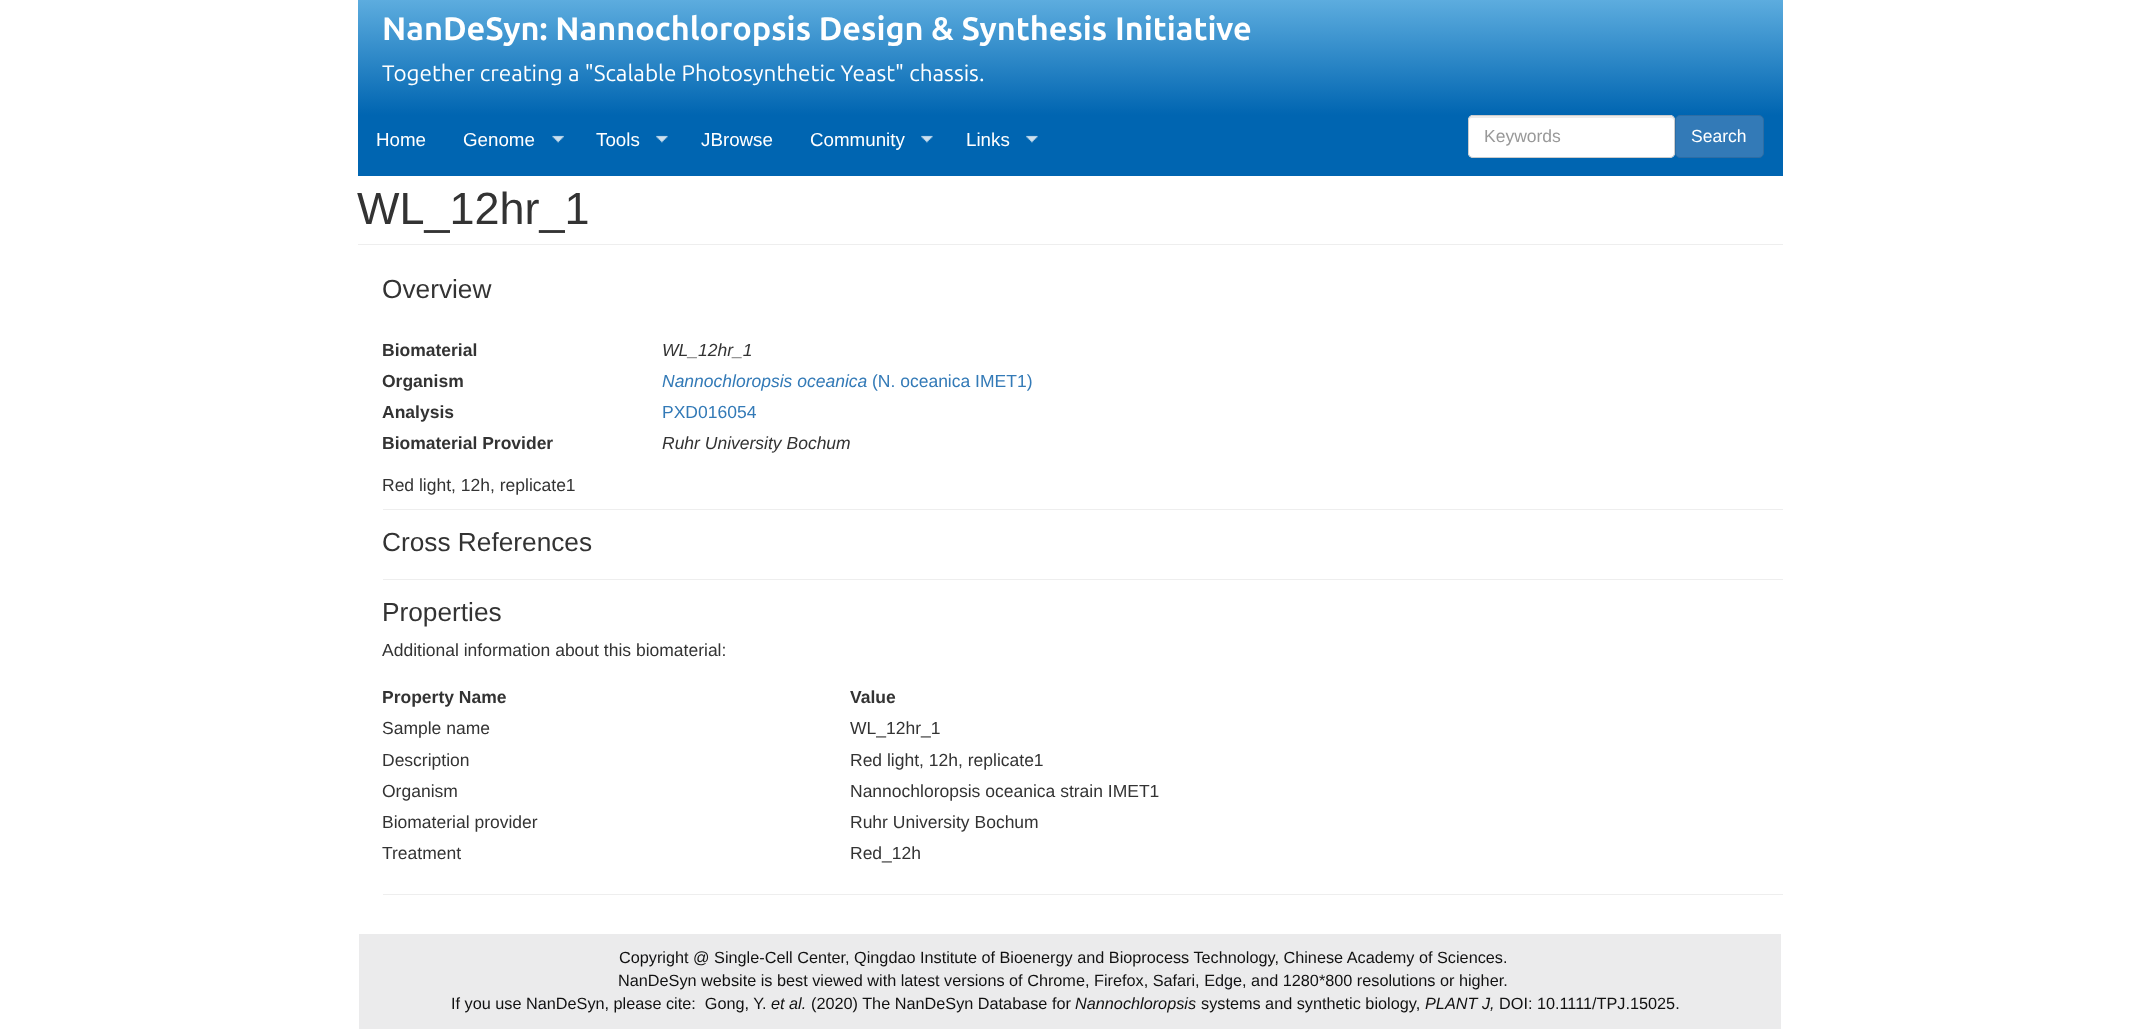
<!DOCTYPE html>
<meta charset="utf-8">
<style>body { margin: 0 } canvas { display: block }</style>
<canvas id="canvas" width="2138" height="1036"></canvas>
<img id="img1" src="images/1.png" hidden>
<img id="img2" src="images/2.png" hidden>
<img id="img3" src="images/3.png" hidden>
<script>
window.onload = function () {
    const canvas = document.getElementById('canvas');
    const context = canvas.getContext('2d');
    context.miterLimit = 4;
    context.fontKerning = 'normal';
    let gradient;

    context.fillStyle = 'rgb(255, 255, 255)';
    context.fillRect(0, 0, 2138, 1036);
    gradient = context.createLinearGradient(1070, -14, 1070, 115);
    gradient.addColorStop(0, 'rgb(104, 181, 228)');
    gradient.addColorStop(1, 'rgb(0, 101, 177)');
    context.fillStyle = gradient;
    context.fillRect(358, 0, 1425, 115);
    context.fillStyle = 'rgb(0, 101, 177)';
    context.fillRect(358, 115, 1425, 61);
    context.drawImage(document.getElementById('img1'), 552, 135, 12, 8);
    context.drawImage(document.getElementById('img2'), 656, 135, 12, 8);
    context.drawImage(document.getElementById('img2'), 921, 135, 12, 8);
    context.drawImage(document.getElementById('img3'), 1026, 135, 12, 8);
    context.fillStyle = 'rgb(255, 255, 255)';
    context.beginPath();
    context.roundRect(1468, 115, 207, 43, 5);
    context.fill();
    context.fillStyle = 'rgb(236, 236, 236)';
    context.beginPath();
    context.moveTo(1472, 118);
    context.lineTo(1670, 118);
    context.bezierCurveTo(1672, 118, 1674, 119, 1674, 121);
    context.lineTo(1674, 120);
    context.bezierCurveTo(1674, 118, 1672, 116, 1670, 116);
    context.lineTo(1473, 116);
    context.bezierCurveTo(1471, 116, 1469, 118, 1469, 120);
    context.lineTo(1469, 121);
    context.bezierCurveTo(1469, 119, 1470, 118, 1472, 118);
    context.closePath();
    context.fill();
    context.beginPath();
    context.roundRect(1468.5, 115.5, 206, 42, 4.5);
    context.strokeStyle = 'rgb(204, 204, 204)';
    context.stroke();
    context.fillStyle = 'rgb(51, 122, 183)';
    context.beginPath();
    context.roundRect(1675.5, 115.5, 88, 42, 4.5);
    context.fill();
    context.strokeStyle = 'rgb(46, 109, 164)';
    context.stroke();
    context.fillStyle = 'rgb(238, 238, 238)';
    context.fillRect(358, 244, 1425, 1);
    context.fillRect(383, 509, 1400, 1);
    context.fillRect(383, 579, 1400, 1);
    context.fillRect(383, 894, 1400, 1);
    context.fillStyle = 'rgb(235, 235, 236)';
    context.fillRect(359, 934, 1422, 95);
    context.font = 'bold 32.5px Ubuntu';
    context.fillStyle = 'rgb(255, 255, 255)';
    context.fillText('NanDeSyn: Nannochloropsis Design & Synthesis Initiative', 382, 40);
    context.font = '22.5px Ubuntu';
    context.fillText('Together creating a "Scalable Photosynthetic Yeast" chassis.', 382, 81);
    context.font = '18.75px Liberation Sans';
    context.fillText('Home', 376, 146);
    context.fillText('Genome', 463, 146);
    context.fillText('Tools', 596, 146);
    context.fillText('JBrowse', 701, 146);
    context.fillText('Community', 810, 146);
    context.fillText('Links', 966, 146);
    context.font = '17.5px Liberation Sans';
    context.fillStyle = 'rgb(153, 153, 153)';
    context.fillText('Keywords', 1484, 142);
    context.fillStyle = 'rgb(255, 255, 255)';
    context.fillText('Search', 1691, 142);
    context.font = '45px Liberation Sans';
    context.fillStyle = 'rgb(51, 51, 51)';
    context.fillText('WL_12hr_1', 357, 224);
    context.font = '26.25px Liberation Sans';
    context.fillText('Overview', 382, 298);
    context.font = 'bold 17.5px Liberation Sans';
    context.fillText('Biomaterial', 382, 356);
    context.font = 'italic 17.5px Liberation Sans';
    context.fillText('WL_12hr_1', 662, 356);
    context.font = 'bold 17.5px Liberation Sans';
    context.fillText('Organism', 382, 387);
    context.font = 'italic 17.5px Liberation Sans';
    context.fillStyle = 'rgb(51, 122, 183)';
    context.fillText('Nannochloropsis oceanica', 662, 387);
    context.font = '17.5px Liberation Sans';
    context.fillText('(N. oceanica IMET1)', 872, 387);
    context.font = 'bold 17.5px Liberation Sans';
    context.fillStyle = 'rgb(51, 51, 51)';
    context.fillText('Analysis', 382, 418);
    context.font = '17.5px Liberation Sans';
    context.fillStyle = 'rgb(51, 122, 183)';
    context.fillText('PXD016054', 662, 418);
    context.font = 'bold 17.5px Liberation Sans';
    context.fillStyle = 'rgb(51, 51, 51)';
    context.fillText('Biomaterial Provider', 382, 449);
    context.font = 'italic 17.5px Liberation Sans';
    context.fillText('Ruhr University Bochum', 662, 449);
    context.font = '17.5px Liberation Sans';
    context.fillText('Red light, 12h, replicate1', 382, 491);
    context.font = '26.25px Liberation Sans';
    context.fillText('Cross References', 382, 551);
    context.fillText('Properties', 382, 621);
    context.font = '17.5px Liberation Sans';
    context.fillText('Additional information about this biomaterial:', 382, 656);
    context.font = 'bold 17.5px Liberation Sans';
    context.fillText('Property Name', 382, 703);
    context.fillText('Value', 850, 703);
    context.font = '17.5px Liberation Sans';
    context.fillText('Sample name', 382, 734);
    context.fillText('WL_12hr_1', 850, 734);
    context.fillText('Description', 382, 766);
    context.fillText('Red light, 12h, replicate1', 850, 766);
    context.fillText('Organism', 382, 797);
    context.fillText('Nannochloropsis oceanica strain IMET1', 850, 797);
    context.fillText('Biomaterial provider', 382, 828);
    context.fillText('Ruhr University Bochum', 850, 828);
    context.fillText('Treatment', 382, 859);
    context.fillText('Red_12h', 850, 859);
    context.font = '16.25px Liberation Sans';
    context.fillStyle = 'rgb(17, 17, 17)';
    context.fillText('Copyright @ Single-Cell Center, Qingdao Institute of Bioenergy and Bioprocess Technology, Chinese Academy of Sciences.', 619, 963);
    context.fillText('NanDeSyn website is best viewed with latest versions of Chrome, Firefox, Safari, Edge, and 1280*800 resolutions or higher.', 618, 986);
    context.fillText('If you use NanDeSyn, please cite:  Gong, Y.', 451, 1009);
    context.font = 'italic 16.25px Liberation Sans';
    context.fillText('et al.', 771, 1009);
    context.font = '16.25px Liberation Sans';
    context.fillText('(2020) The NanDeSyn Database for', 811, 1009);
    context.font = 'italic 16.25px Liberation Sans';
    context.fillText('Nannochloropsis', 1075, 1009);
    context.font = '16.25px Liberation Sans';
    context.fillText('systems and synthetic biology,', 1201, 1009);
    context.font = 'italic 16.25px Liberation Sans';
    context.fillText('PLANT J,', 1425, 1009);
    context.font = '16.25px Liberation Sans';
    context.fillText('DOI: 10.1111/TPJ.15025.', 1499, 1009);
};
</script>
